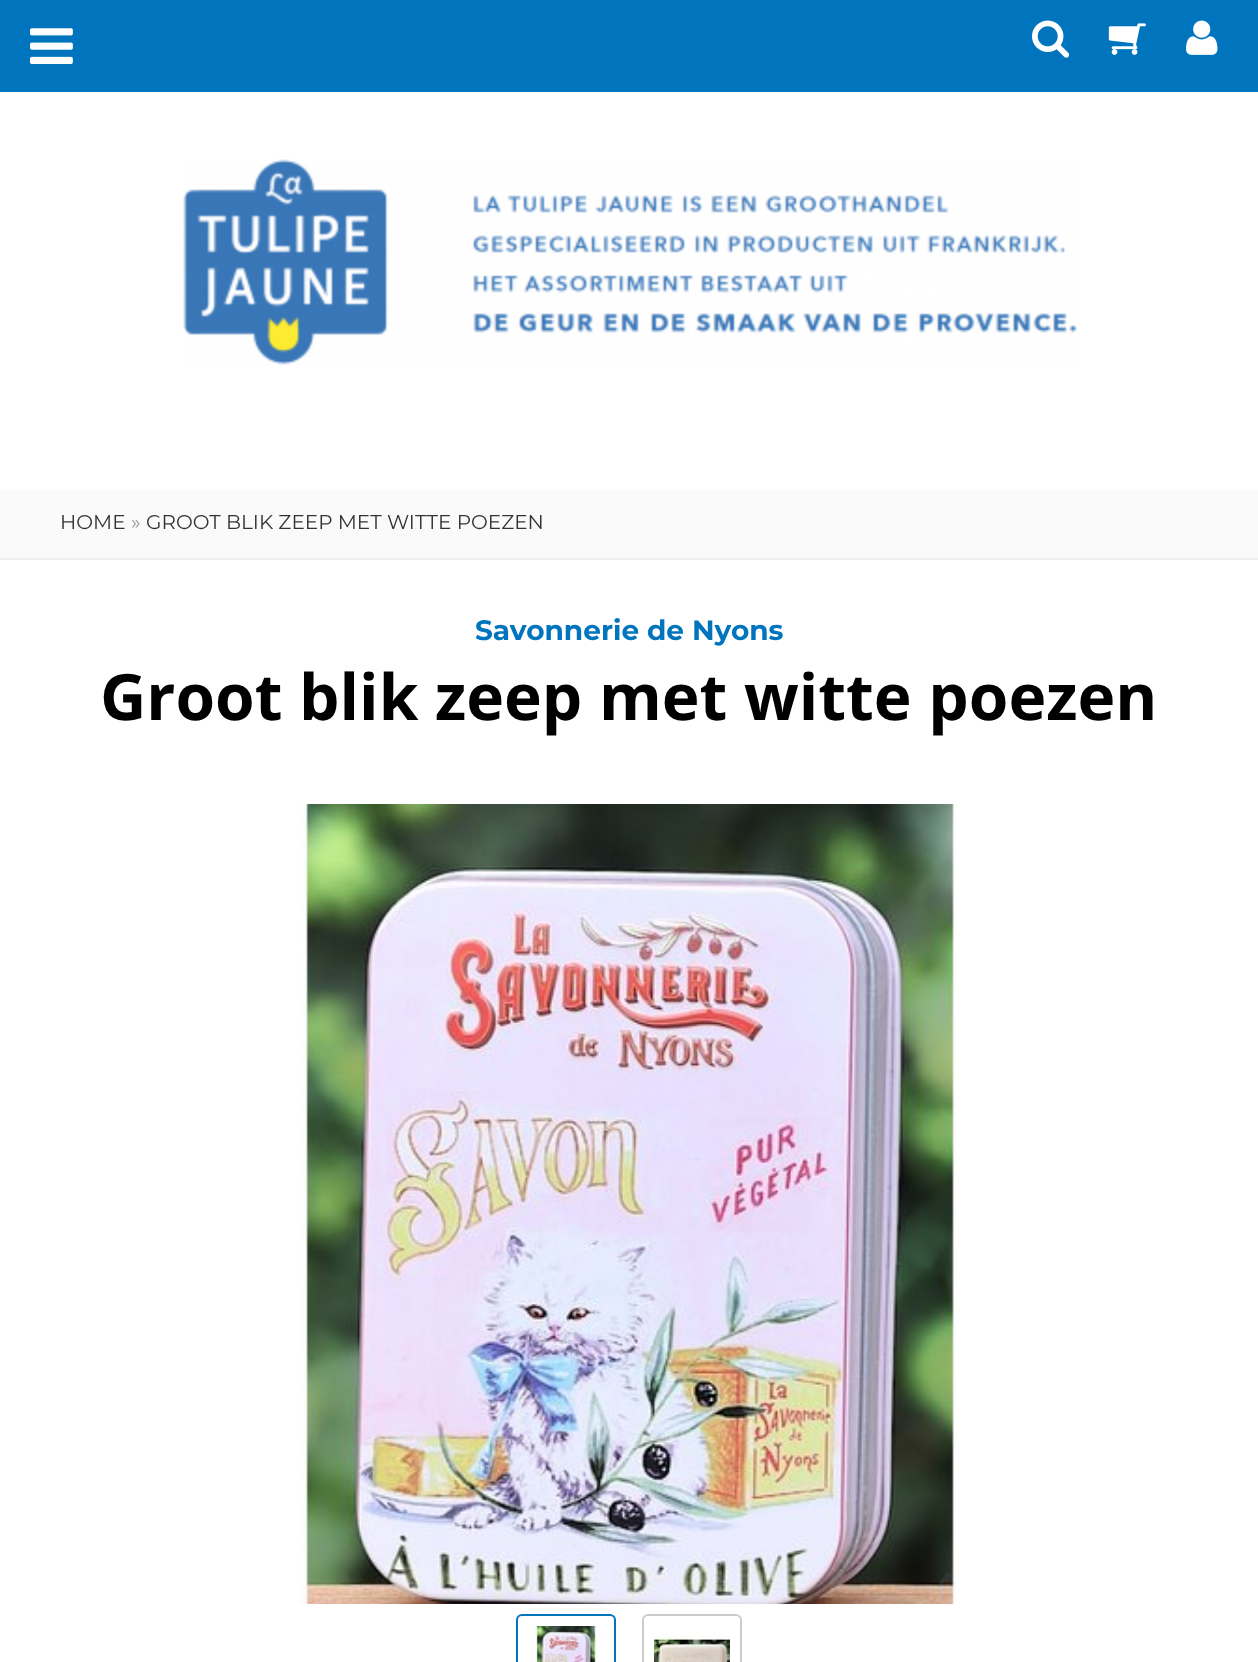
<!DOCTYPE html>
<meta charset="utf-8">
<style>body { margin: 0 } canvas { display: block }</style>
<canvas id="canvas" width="1258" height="1662"></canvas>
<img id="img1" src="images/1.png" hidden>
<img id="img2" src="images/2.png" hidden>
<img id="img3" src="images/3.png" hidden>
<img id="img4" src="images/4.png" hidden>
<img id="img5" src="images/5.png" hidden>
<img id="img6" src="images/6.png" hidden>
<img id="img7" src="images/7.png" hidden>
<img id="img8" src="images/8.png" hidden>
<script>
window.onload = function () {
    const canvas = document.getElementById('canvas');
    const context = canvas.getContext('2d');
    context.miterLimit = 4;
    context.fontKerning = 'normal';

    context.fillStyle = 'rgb(255, 255, 255)';
    context.fillRect(0, 0, 1258, 1662);
    context.fillStyle = 'rgb(0, 117, 190)';
    context.fillRect(0, 0, 1258, 92);
    context.drawImage(document.getElementById('img1'), 30, 28, 43, 36);
    context.drawImage(document.getElementById('img2'), 1032, 20, 38, 38);
    context.drawImage(document.getElementById('img3'), 1108, 23, 38, 32);
    context.drawImage(document.getElementById('img4'), 1186, 20, 32, 35);
    context.drawImage(document.getElementById('img5'), 183, 159, 894, 206);
    context.fillStyle = 'rgb(250, 250, 250)';
    context.fillRect(0, 490, 1258, 68);
    context.fillStyle = 'rgb(239, 239, 239)';
    context.fillRect(0, 558, 1258, 2);
    context.drawImage(document.getElementById('img6'), 299, 804, 658, 800);
    context.beginPath();
    context.roundRect(517, 1615, 98, 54, 5);
    context.strokeStyle = 'rgb(0, 117, 190)';
    context.lineWidth = 2;
    context.stroke();
    context.drawImage(document.getElementById('img7'), 528, 1626, 73, 36);
    context.beginPath();
    context.roundRect(643, 1615, 98, 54, 5);
    context.strokeStyle = 'rgb(204, 204, 204)';
    context.stroke();
    context.drawImage(document.getElementById('img8'), 654, 1634, 76, 28);
    context.font = '20px Montserrat';
    context.fillStyle = 'rgb(51, 51, 51)';
    context.fillText('HOME', 60, 529);
    context.fillStyle = 'rgb(154, 154, 154)';
    context.fillText('»', 131, 529);
    context.fillStyle = 'rgb(51, 51, 51)';
    context.fillText('GROOT BLIK ZEEP MET WITTE POEZEN', 146, 529);
    context.font = 'bold 28px Montserrat';
    context.fillStyle = 'rgb(0, 117, 190)';
    context.fillText('Savonnerie de Nyons', 475, 640);
    context.font = 'bold 64px Open Sans';
    context.fillStyle = 'rgb(0, 0, 0)';
    context.fillText('Groot blik zeep met witte poezen', 100, 720);
};
</script>
